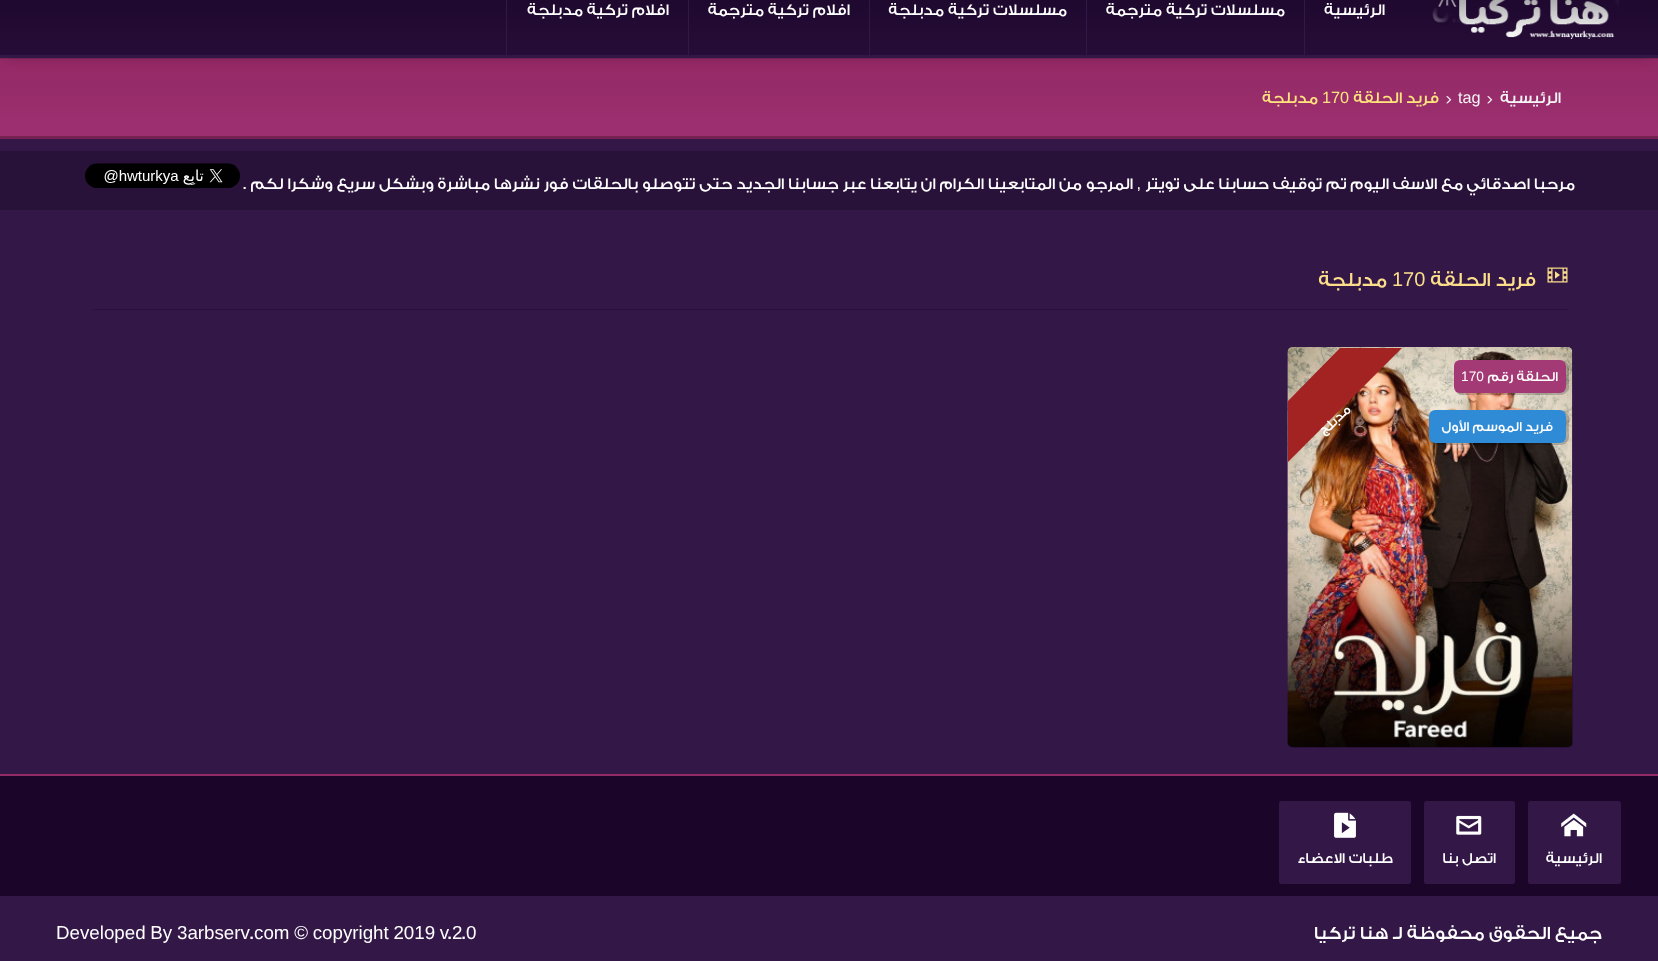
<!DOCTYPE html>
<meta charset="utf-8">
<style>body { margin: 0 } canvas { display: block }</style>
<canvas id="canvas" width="1658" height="961"></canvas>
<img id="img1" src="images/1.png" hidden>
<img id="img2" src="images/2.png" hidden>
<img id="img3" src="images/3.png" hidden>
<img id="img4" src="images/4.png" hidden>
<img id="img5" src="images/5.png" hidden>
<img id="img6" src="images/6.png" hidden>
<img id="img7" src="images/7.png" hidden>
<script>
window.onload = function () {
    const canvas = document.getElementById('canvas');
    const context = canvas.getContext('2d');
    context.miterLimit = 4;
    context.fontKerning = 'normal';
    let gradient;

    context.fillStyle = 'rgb(50, 23, 71)';
    context.fillRect(0, 0, 1658, 961);
    gradient = context.createLinearGradient(829, 59, 829, 136);
    gradient.addColorStop(0, 'rgb(147, 41, 101)');
    gradient.addColorStop(1, 'rgb(157, 48, 113)');
    context.fillStyle = gradient;
    context.fillRect(0, 59, 1658, 77);
    context.fillStyle = 'rgb(126, 38, 90)';
    context.fillRect(0, 58, 1658, 1);
    context.fillStyle = 'rgba(0, 0, 0, 0.15)';
    context.filter = 'blur(5px)';
    context.beginPath();
    context.rect(8, -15, 1643, 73);
    context.fill();
    context.filter = 'none';
    gradient = context.createLinearGradient(829, -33, 829, 55);
    gradient.addColorStop(0, 'rgb(27, 6, 41)');
    gradient.addColorStop(1, 'rgb(38, 13, 56)');
    context.fillStyle = gradient;
    context.fillRect(0, 0, 1658, 55);
    context.fillStyle = 'rgb(50, 23, 71)';
    context.fillRect(0, 55, 1658, 3);
    context.drawImage(document.getElementById('img1'), 1432, 0, 187, 39);
    context.fillRect(1304, 0, 1, 55);
    context.fillRect(1086, 0, 1, 55);
    context.fillRect(869, 0, 1, 55);
    context.fillRect(688, 0, 1, 55);
    context.fillRect(506, 0, 1, 55);
    context.fillStyle = 'rgb(118, 33, 81)';
    context.fillRect(0, 136, 1658, 3);
    context.fillStyle = 'rgb(40, 18, 57)';
    context.fillRect(0, 151, 1658, 59);
    context.drawImage(document.getElementById('img2'), 85, 163, 155, 25);
    context.drawImage(document.getElementById('img3'), 1547, 267, 21, 16);
    context.fillRect(93, 309, 1475, 1);
    context.beginPath();
    context.roundRect(1288, 348, 285, 400, 5);
    context.fill();
    context.drawImage(document.getElementById('img4'), 1287, 347, 286, 400);
    context.fillStyle = 'rgba(0, 0, 0, 0.2)';
    context.beginPath();
    context.moveTo(1454, 388);
    context.bezierCurveTo(1455, 392, 1458, 395, 1462, 395);
    context.lineTo(1561, 395);
    context.bezierCurveTo(1565, 395, 1569, 391, 1569, 387);
    context.lineTo(1569, 368);
    context.bezierCurveTo(1569, 364, 1565, 360, 1561, 360);
    context.lineTo(1560, 360);
    context.bezierCurveTo(1563, 360, 1566, 363, 1566, 366);
    context.lineTo(1566, 386);
    context.bezierCurveTo(1566, 390, 1563, 392, 1560, 392);
    context.lineTo(1460, 392);
    context.bezierCurveTo(1457, 392, 1455, 391, 1454, 388);
    context.closePath();
    context.fill();
    context.fillStyle = 'rgb(164, 58, 117)';
    context.beginPath();
    context.roundRect(1454, 360, 112, 33, 6);
    context.fill();
    context.fillStyle = 'rgb(163, 35, 35)';
    context.beginPath();
    context.moveTo(1402, 348);
    context.lineTo(1288, 462);
    context.lineTo(1288, 401);
    context.lineTo(1340, 348);
    context.closePath();
    context.fill();
    context.fillStyle = 'rgba(0, 0, 0, 0.2)';
    context.beginPath();
    context.moveTo(1429, 438);
    context.bezierCurveTo(1430, 442, 1433, 445, 1437, 445);
    context.lineTo(1561, 445);
    context.bezierCurveTo(1565, 445, 1569, 441, 1569, 437);
    context.lineTo(1569, 418);
    context.bezierCurveTo(1569, 414, 1565, 410, 1561, 410);
    context.lineTo(1560, 410);
    context.bezierCurveTo(1563, 410, 1566, 413, 1566, 416);
    context.lineTo(1566, 436);
    context.bezierCurveTo(1566, 440, 1563, 442, 1560, 442);
    context.lineTo(1435, 442);
    context.bezierCurveTo(1432, 442, 1430, 441, 1429, 438);
    context.closePath();
    context.fill();
    context.fillStyle = 'rgb(47, 139, 214)';
    context.beginPath();
    context.roundRect(1429, 410, 137, 33, 6);
    context.fill();
    context.fillStyle = 'rgb(147, 41, 101)';
    context.fillRect(0, 774, 1658, 2);
    context.fillStyle = 'rgb(27, 6, 41)';
    context.fillRect(0, 776, 1658, 120);
    context.fillStyle = 'rgb(50, 23, 71)';
    context.beginPath();
    context.roundRect(1528, 801, 93, 83, 2.5);
    context.fill();
    context.drawImage(document.getElementById('img5'), 1561, 813, 26, 24);
    context.beginPath();
    context.roundRect(1424, 801, 91, 83, 2.5);
    context.fill();
    context.drawImage(document.getElementById('img6'), 1456, 815, 26, 20);
    context.beginPath();
    context.roundRect(1279, 801, 132, 83, 2.5);
    context.fill();
    context.drawImage(document.getElementById('img7'), 1334, 812, 22, 26);
    context.direction = 'rtl';
    context.font = '500 16.25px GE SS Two';
    context.fillStyle = 'rgb(255, 255, 255)';
    context.fillText('الرئيسية', 1385, 15);
    context.fillText('مسلسلات تركية مترجمة', 1285, 15);
    context.fillText('مسلسلات تركية مدبلجة', 1067, 15);
    context.fillText('افلام تركية مترجمة', 850, 15);
    context.fillText('افلام تركية مدبلجة', 669, 15);
    context.fillStyle = 'rgb(245, 245, 245)';
    context.fillText('الرئيسية', 1561, 103);
    context.direction = 'ltr';
    context.font = '500 15px GE SS Two';
    context.fillText('>', 1486, 103);
    context.font = '16.25px Liberation Sans';
    context.fillText('tag', 1458, 103);
    context.font = '500 15px GE SS Two';
    context.fillText('>', 1445, 103);
    context.direction = 'rtl';
    context.font = '500 16.25px GE SS Two';
    context.fillStyle = 'rgb(255, 227, 124)';
    context.fillText('فريد الحلقة', 1439, 103);
    context.direction = 'ltr';
    context.font = '16.25px Liberation Sans';
    context.fillText('170', 1322, 103);
    context.direction = 'rtl';
    context.font = '500 16.25px GE SS Two';
    context.fillText('مدبلجة', 1318, 103);
    context.fillStyle = 'rgb(255, 255, 255)';
    context.fillText('مرحبا اصدقائي', 1575, 189);
    context.fillText('مع الاسف اليوم تم توقيف حسابنا على تويتر', 1463, 189);
    context.font = '16.25px Liberation Sans';
    context.fillText(',', 1141, 189);
    context.font = '500 16.25px GE SS Two';
    context.fillText('المرجو من المتابعينا الكرام ان يتابعنا عبر جسابنا الجديد حتى تتوصلو بالحلقات فور نشرها مباشرة وبشكل سريع وشكرا لكم .', 1133, 189);
    context.font = '500 20px GE SS Two';
    context.fillStyle = 'rgb(252, 222, 138)';
    context.fillText('فريد الحلقة', 1536, 286);
    context.direction = 'ltr';
    context.font = '20px Liberation Sans';
    context.fillText('170', 1392, 286);
    context.direction = 'rtl';
    context.font = '500 20px GE SS Two';
    context.fillText('مدبلجة', 1387, 286);
    context.font = '500 13.75px GE SS Two';
    context.fillStyle = 'rgb(255, 255, 255)';
    context.fillText('الحلقة رقم', 1558, 381);
    context.direction = 'ltr';
    context.font = '13.75px Liberation Sans';
    context.fillText('170', 1461, 381);
    context.direction = 'rtl';
    context.font = '500 13.75px GE SS Two';
    context.save();
    context.translate(1351, 410);
    context.rotate(-45 * Math.PI / 180);
    context.fillText('مدبلج', 0, 0);
    context.restore();
    context.fillText('فريد الموسم الأول', 1553, 431);
    context.font = '500 15px GE SS Two';
    context.fillText('الرئيسية', 1602, 863);
    context.fillText('اتصل بنا', 1496, 863);
    context.fillText('طلبات الاعضاء', 1393, 863);
    context.font = '500 18.75px GE SS Two';
    context.fillText('جميع الحقوق محفوظة لـ هنا تركيا', 1602, 939);
    context.direction = 'ltr';
    context.font = '18.75px Liberation Sans';
    context.fillText('0', 466, 939);
    context.font = '500 18.75px GE SS Two';
    context.fillText('.', 462, 939);
    context.font = '18.75px Liberation Sans';
    context.fillText('2', 452, 939);
    context.font = '500 18.75px GE SS Two';
    context.fillText('.', 448, 939);
    context.wordSpacing = '-0.5px';
    context.font = '18.75px Liberation Sans';
    context.fillText('com © copyright 2019 v', 254, 939);
    context.wordSpacing = '0px';
    context.font = '500 18.75px GE SS Two';
    context.fillText('.', 250, 939);
    context.wordSpacing = '-0.5px';
    context.font = '18.75px Liberation Sans';
    context.fillText('Developed By 3arbserv', 56, 939);
};
</script>
